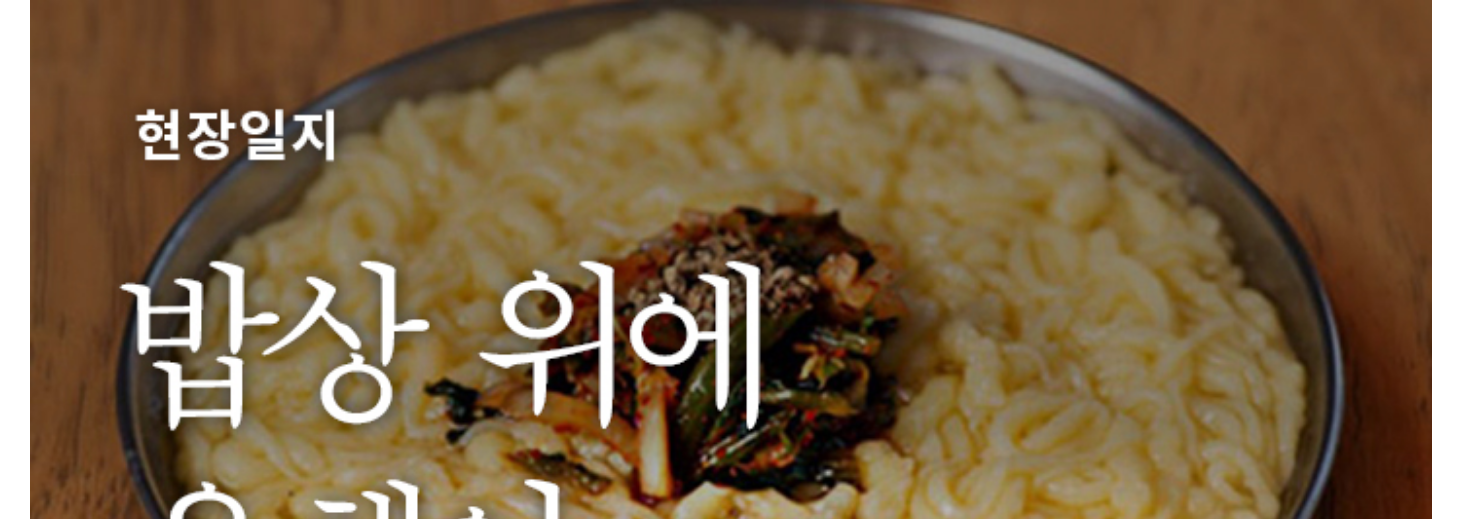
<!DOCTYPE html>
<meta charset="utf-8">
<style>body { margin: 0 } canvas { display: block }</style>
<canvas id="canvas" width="1462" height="519"></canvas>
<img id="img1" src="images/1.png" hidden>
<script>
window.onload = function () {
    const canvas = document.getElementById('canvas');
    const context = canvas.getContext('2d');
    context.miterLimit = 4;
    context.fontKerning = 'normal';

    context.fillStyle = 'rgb(255, 255, 255)';
    context.fillRect(0, 0, 1462, 519);
    context.drawImage(document.getElementById('img1'), 30, 0, 1402, 519);
};
</script>
